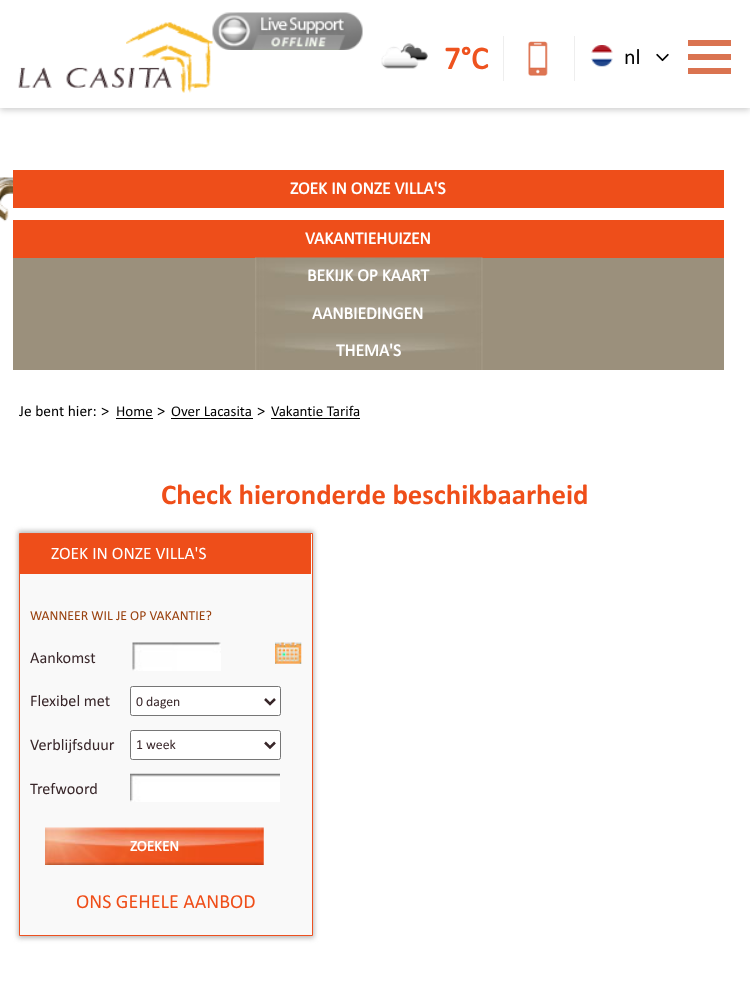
<!DOCTYPE html>
<meta charset="utf-8">
<style>body { margin: 0 } canvas { display: block }</style>
<canvas id="canvas" width="750" height="986"></canvas>
<img id="img1" src="images/1.png" hidden>
<img id="img2" src="images/2.png" hidden>
<img id="img3" src="images/3.png" hidden>
<img id="img4" src="images/4.png" hidden>
<img id="img5" src="images/5.png" hidden>
<img id="img6" src="images/6.png" hidden>
<img id="img7" src="images/7.png" hidden>
<img id="img8" src="images/8.png" hidden>
<img id="img9" src="images/9.png" hidden>
<img id="img10" src="images/10.png" hidden>
<img id="img11" src="images/11.png" hidden>
<img id="img12" src="images/12.png" hidden>
<img id="img13" src="images/13.png" hidden>
<img id="img14" src="images/14.png" hidden>
<script>
window.onload = function () {
    const canvas = document.getElementById('canvas');
    const context = canvas.getContext('2d');
    context.miterLimit = 4;
    context.fontKerning = 'normal';

    context.fillStyle = 'rgb(255, 255, 255)';
    context.fillRect(0, 0, 750, 986);
    context.fillStyle = 'rgba(0, 0, 0, 0.2)';
    context.filter = 'blur(3px)';
    context.beginPath();
    context.rect(0, 3, 750, 107);
    context.fill();
    context.filter = 'none';
    context.fillStyle = 'rgb(255, 255, 255)';
    context.fillRect(0, 0, 750, 108);
    context.drawImage(document.getElementById('img1'), 18, 22, 195, 71);
    context.drawImage(document.getElementById('img2'), 212, 12, 151, 38);
    context.drawImage(document.getElementById('img3'), 381, 43, 47, 26);
    context.fillStyle = 'rgb(238, 238, 238)';
    context.fillRect(503, 36, 1, 45);
    context.drawImage(document.getElementById('img4'), 528, 41, 20, 35);
    context.fillRect(574, 36, 1, 45);
    context.drawImage(document.getElementById('img5'), 656, 53, 13, 9);
    context.drawImage(document.getElementById('img6'), 591, 45, 22, 22);
    context.fillStyle = 'rgb(218, 115, 80)';
    context.fillRect(688, 40, 43, 6);
    context.fillRect(688, 54, 43, 6);
    context.fillRect(688, 68, 43, 6);
    context.drawImage(document.getElementById('img7'), 0, 177, 13, 45);
    context.fillStyle = 'rgb(238, 78, 26)';
    context.fillRect(13, 170, 711, 38);
    context.fillRect(13, 220, 711, 38);
    context.fillStyle = 'rgb(155, 144, 124)';
    context.fillRect(13, 258, 711, 112);
    context.drawImage(document.getElementById('img8'), 255, 257, 228, 38);
    context.drawImage(document.getElementById('img9'), 255, 295, 228, 38);
    context.drawImage(document.getElementById('img10'), 255, 333, 228, 37);
    context.fillStyle = 'rgb(0, 0, 0)';
    context.fillRect(116, 418, 37, 1);
    context.fillRect(171, 418, 82, 1);
    context.fillRect(271, 418, 89, 1);
    context.fillStyle = 'rgb(183, 183, 183)';
    context.filter = 'blur(2.5px)';
    context.beginPath();
    context.rect(18, 531, 296, 407);
    context.fill();
    context.filter = 'none';
    context.fillStyle = 'rgb(249, 249, 249)';
    context.beginPath();
    context.rect(19.5, 533.5, 293, 402);
    context.fill();
    context.strokeStyle = 'rgb(237, 81, 33)';
    context.stroke();
    context.fillStyle = 'rgb(238, 78, 26)';
    context.fillRect(20, 534, 291, 40);
    context.drawImage(document.getElementById('img11'), 132, 642, 89, 29);
    context.drawImage(document.getElementById('img12'), 275, 642, 27, 22);
    context.fillStyle = 'rgb(255, 255, 255)';
    context.beginPath();
    context.roundRect(130.5, 686.5, 150, 29, 2);
    context.fill();
    context.strokeStyle = 'rgb(118, 118, 118)';
    context.stroke();
    context.beginPath();
    context.moveTo(265, 699);
    context.lineTo(270, 704);
    context.lineTo(275, 699);
    context.strokeStyle = 'rgb(56, 38, 41)';
    context.lineWidth = 2.5;
    context.stroke();
    context.beginPath();
    context.roundRect(130.5, 730.5, 150, 29, 2);
    context.fill();
    context.strokeStyle = 'rgb(118, 118, 118)';
    context.lineWidth = 1;
    context.stroke();
    context.beginPath();
    context.moveTo(265, 742.5);
    context.lineTo(270, 747.5);
    context.lineTo(275, 742.5);
    context.strokeStyle = 'rgb(56, 38, 41)';
    context.lineWidth = 2.5;
    context.stroke();
    context.drawImage(document.getElementById('img13'), 130, 773, 150, 29);
    context.drawImage(document.getElementById('img14'), 45, 827, 219, 38);
    context.font = 'bold 32px "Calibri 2"';
    context.fillStyle = 'rgb(238, 83, 31)';
    context.fillText('7°C', 444, 69);
    context.font = '22px Calibri';
    context.fillStyle = 'rgb(0, 0, 0)';
    context.fillText('nl', 624, 64);
    context.font = 'bold 17.5px "Calibri 2"';
    context.fillStyle = 'rgb(255, 255, 255)';
    context.fillText('ZOEK IN ONZE VILLA\'S', 290, 194);
    context.fillText('VAKANTIEHUIZEN', 305, 244);
    context.fillText('BEKIJK OP KAART', 307, 281);
    context.fillText('AANBIEDINGEN', 312, 319);
    context.fillText('THEMA\'S', 336, 356);
    context.font = '15.5px Calibri';
    context.fillStyle = 'rgb(0, 0, 0)';
    context.fillText('Je bent hier:', 19, 416);
    context.font = '16.25px Calibri';
    context.fillText('>', 101, 416);
    context.font = '15px Calibri';
    context.fillText('Home', 116, 416);
    context.font = '16.25px Calibri';
    context.fillText('>', 157, 416);
    context.font = '15px Calibri';
    context.fillText('Over Lacasita', 171, 416);
    context.font = '16.25px Calibri';
    context.fillText('>', 257, 416);
    context.font = '15px Calibri';
    context.fillText('Vakantie Tarifa', 271, 416);
    context.font = 'bold 28.75px Calibri';
    context.fillStyle = 'rgb(239, 78, 25)';
    context.fillText('Check hieronder', 161, 504);
    context.fillText('de beschikbaarheid', 356, 504);
    context.font = '17.5px Calibri';
    context.fillStyle = 'rgb(255, 255, 255)';
    context.fillText('ZOEK IN ONZE VILLA\'S', 51, 559);
    context.font = '13.75px Calibri';
    context.fillStyle = 'rgb(153, 65, 14)';
    context.fillText('WANNEER WIL JE OP VAKANTIE?', 30, 620);
    context.font = '16.25px Calibri';
    context.fillStyle = 'rgb(56, 38, 41)';
    context.fillText('Aankomst', 30, 663);
    context.fillText('Flexibel met', 30, 706);
    context.font = '13.75px Calibri';
    context.fillText('0 dagen', 136, 706);
    context.font = '16.25px Calibri';
    context.fillText('Verblijfsduur', 30, 750);
    context.font = '13.75px Calibri';
    context.fillText('1 week', 136, 749);
    context.font = '16.25px Calibri';
    context.fillText('Trefwoord', 30, 794);
    context.font = 'bold 15px "Calibri 2"';
    context.fillStyle = 'rgb(255, 255, 255)';
    context.fillText('ZOEKEN', 130, 851);
    context.font = '20px Calibri';
    context.fillStyle = 'rgb(239, 78, 25)';
    context.fillText('ONS GEHELE AANBOD', 76, 908);
};
</script>
